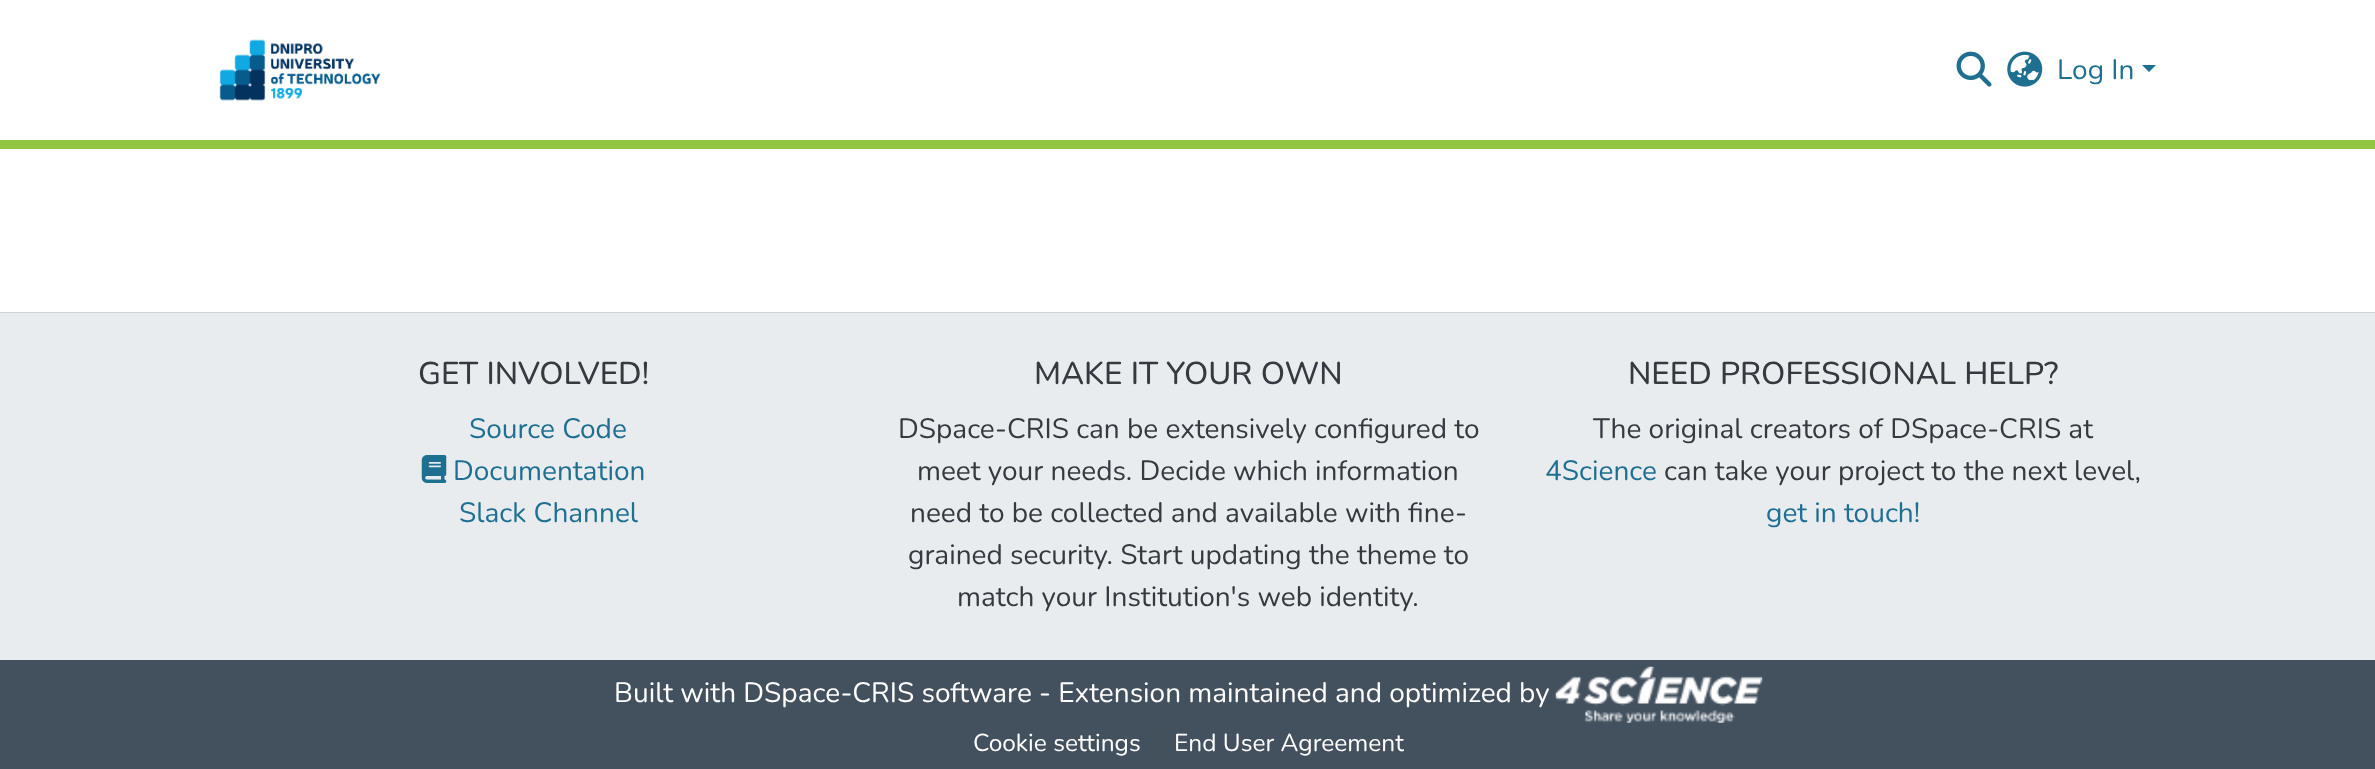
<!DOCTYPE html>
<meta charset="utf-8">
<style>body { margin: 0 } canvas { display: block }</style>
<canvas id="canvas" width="2375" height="769"></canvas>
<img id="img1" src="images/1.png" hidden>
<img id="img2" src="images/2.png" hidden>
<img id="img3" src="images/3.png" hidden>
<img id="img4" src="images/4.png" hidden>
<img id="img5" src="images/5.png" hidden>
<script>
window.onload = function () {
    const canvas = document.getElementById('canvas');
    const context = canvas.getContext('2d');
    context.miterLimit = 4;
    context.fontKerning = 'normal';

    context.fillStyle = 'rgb(255, 255, 255)';
    context.fillRect(0, 0, 2375, 769);
    context.fillStyle = 'rgb(146, 198, 66)';
    context.fillRect(0, 140, 2375, 9);
    context.drawImage(document.getElementById('img1'), 219, 39, 162, 62);
    context.drawImage(document.getElementById('img2'), 1956, 51, 36, 36);
    context.drawImage(document.getElementById('img3'), 2007, 51, 36, 36);
    context.fillStyle = 'rgb(30, 111, 144)';
    context.beginPath();
    context.moveTo(2142, 65);
    context.lineTo(2156, 65);
    context.lineTo(2149, 72);
    context.closePath();
    context.fill();
    context.fillStyle = 'rgb(67, 81, 95)';
    context.fillRect(0, 660, 2375, 109);
    context.fillStyle = 'rgb(206, 212, 218)';
    context.fillRect(0, 312, 2375, 1);
    context.fillStyle = 'rgb(233, 236, 239)';
    context.fillRect(0, 313, 2375, 347);
    context.drawImage(document.getElementById('img4'), 421, 455, 26, 28);
    context.drawImage(document.getElementById('img5'), 1555, 666, 208, 57);
    context.fillStyle = 'rgb(73, 80, 87)';
    context.fillRect(1157, 723, 2, 40);
    context.font = '28px Nunito';
    context.fillStyle = 'rgb(30, 111, 144)';
    context.fillText('Log In', 2057, 79);
    context.font = '500 31.5px Nunito';
    context.fillStyle = 'rgb(52, 58, 64)';
    context.fillText('GET INVOLVED!', 418, 384);
    context.font = '28px Nunito';
    context.fillStyle = 'rgb(30, 111, 144)';
    context.fillText('Source Code', 469, 438);
    context.fillText('Documentation', 453, 480);
    context.fillText('Slack Channel', 459, 522);
    context.font = '500 31.5px Nunito';
    context.fillStyle = 'rgb(52, 58, 64)';
    context.fillText('MAKE IT YOUR OWN', 1034, 384);
    context.font = '28px Nunito';
    context.fillText('DSpace-CRIS can be extensively configured to', 898, 438);
    context.fillText('meet your needs. Decide which information', 917, 480);
    context.fillText('need to be collected and available with fine-', 910, 522);
    context.fillText('grained security. Start updating the theme to', 908, 564);
    context.fillText('match your Institution\'s web identity.', 957, 606);
    context.font = '500 31.5px Nunito';
    context.fillText('NEED PROFESSIONAL HELP?', 1628, 384);
    context.font = '28px Nunito';
    context.fillText('The original creators of DSpace-CRIS at', 1593, 438);
    context.fillStyle = 'rgb(30, 111, 144)';
    context.fillText('4Science', 1545, 480);
    context.fillStyle = 'rgb(52, 58, 64)';
    context.fillText('can take your project to the next level,', 1664, 480);
    context.fillStyle = 'rgb(30, 111, 144)';
    context.fillText('get in touch!', 1766, 522);
    context.fillStyle = 'rgb(255, 255, 255)';
    context.fillText('Built with DSpace-CRIS software - Extension maintained and optimized by', 614, 702);
    context.font = '24.5px Nunito';
    context.fillText('Cookie settings', 973, 751);
    context.fillText('End User Agreement', 1174, 751);
};
</script>
